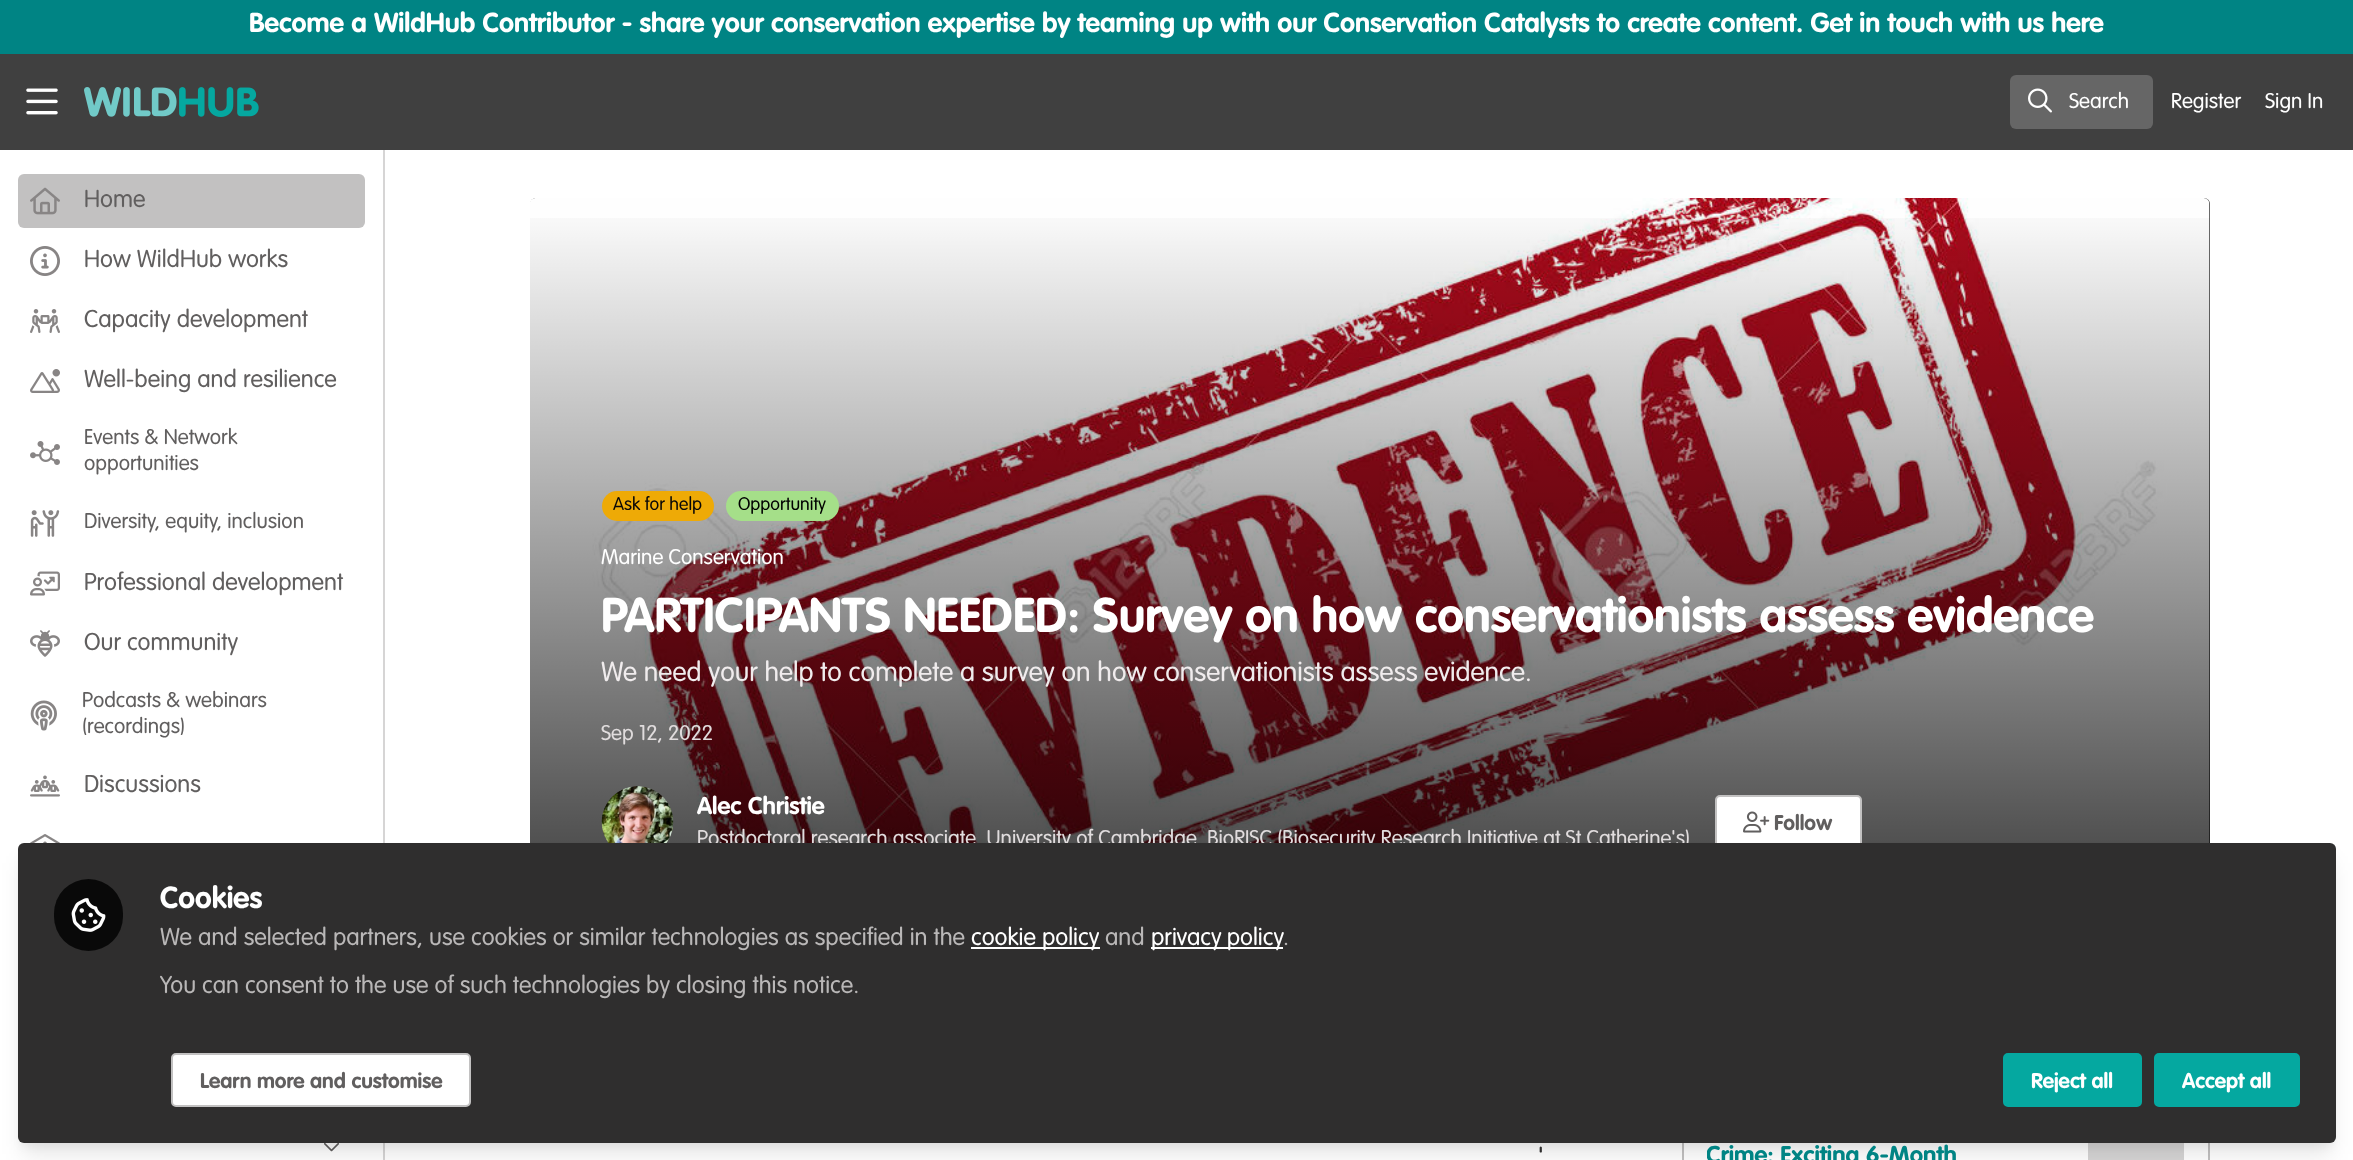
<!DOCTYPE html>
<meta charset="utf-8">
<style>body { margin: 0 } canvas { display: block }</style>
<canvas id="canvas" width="2353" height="1160"></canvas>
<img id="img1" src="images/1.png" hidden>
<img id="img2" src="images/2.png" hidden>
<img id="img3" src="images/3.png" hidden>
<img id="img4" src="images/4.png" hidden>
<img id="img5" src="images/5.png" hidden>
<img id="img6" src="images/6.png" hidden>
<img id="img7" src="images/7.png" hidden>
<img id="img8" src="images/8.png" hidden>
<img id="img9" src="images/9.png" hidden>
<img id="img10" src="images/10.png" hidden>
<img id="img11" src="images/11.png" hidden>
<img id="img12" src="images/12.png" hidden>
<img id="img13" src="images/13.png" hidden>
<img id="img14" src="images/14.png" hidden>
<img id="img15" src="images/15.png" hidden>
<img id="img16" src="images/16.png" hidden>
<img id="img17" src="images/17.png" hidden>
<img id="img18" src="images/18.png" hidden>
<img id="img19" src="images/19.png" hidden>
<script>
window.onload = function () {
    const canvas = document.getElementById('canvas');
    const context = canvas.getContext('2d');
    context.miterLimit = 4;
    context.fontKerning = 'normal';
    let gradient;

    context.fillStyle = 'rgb(255, 255, 255)';
    context.fillRect(0, 0, 2353, 1160);
    context.fillStyle = 'rgb(0, 132, 132)';
    context.fillRect(0, 0, 2353, 54);
    context.fillStyle = 'rgb(64, 64, 64)';
    context.fillRect(0, 54, 2353, 96);
    context.drawImage(document.getElementById('img1'), 26, 88, 32, 27);
    context.drawImage(document.getElementById('img2'), 84, 87, 175, 30);
    context.fillStyle = 'rgb(102, 102, 102)';
    context.beginPath();
    context.roundRect(2010, 75, 143, 54, 6);
    context.fill();
    context.drawImage(document.getElementById('img3'), 2028, 88, 24, 25);
    context.fillStyle = 'rgb(214, 213, 213)';
    context.fillRect(383, 150, 2, 1010);
    context.fillStyle = 'rgb(194, 193, 193)';
    context.beginPath();
    context.roundRect(18, 174, 347, 54, 6);
    context.fill();
    context.drawImage(document.getElementById('img4'), 30, 187, 30, 28);
    context.drawImage(document.getElementById('img5'), 30, 246, 30, 30);
    context.drawImage(document.getElementById('img6'), 30, 309, 30, 24);
    context.drawImage(document.getElementById('img7'), 30, 369, 30, 24);
    context.drawImage(document.getElementById('img8'), 30, 441, 30, 24);
    context.drawImage(document.getElementById('img9'), 30, 510, 30, 27);
    context.drawImage(document.getElementById('img10'), 30, 571, 30, 25);
    context.drawImage(document.getElementById('img11'), 30, 630, 30, 27);
    context.drawImage(document.getElementById('img12'), 30, 700, 27, 31);
    context.drawImage(document.getElementById('img13'), 30, 775, 30, 22);
    context.drawImage(document.getElementById('img14'), 30, 834, 30, 9);
    context.drawImage(document.getElementById('img15'), 324, 1143, 15, 9);
    context.fillStyle = 'rgb(57, 56, 56)';
    context.beginPath();
    context.roundRect(530, 198, 1680, 756, 6);
    context.fill();
    context.drawImage(document.getElementById('img16'), 530, 198, 1680, 645);
    gradient = context.createLinearGradient(1370, 198, 1370, 954);
    gradient.addColorStop(0, 'rgba(0, 0, 0, 0)');
    gradient.addColorStop(1, 'rgba(0, 0, 0, 0.8)');
    context.fillStyle = gradient;
    context.fillRect(530, 218, 1680, 625);
    context.fillStyle = 'rgb(238, 170, 6)';
    context.beginPath();
    context.roundRect(602, 491, 112, 30, 15);
    context.fill();
    context.fillStyle = 'rgb(165, 223, 137)';
    context.beginPath();
    context.roundRect(726, 491, 113, 30, 15);
    context.fill();
    context.drawImage(document.getElementById('img17'), 601, 786, 73, 57);
    context.fillStyle = 'rgb(255, 255, 255)';
    context.beginPath();
    context.roundRect(1716, 796, 145, 52, 4);
    context.fill();
    context.strokeStyle = 'rgb(194, 193, 193)';
    context.lineWidth = 2;
    context.stroke();
    context.drawImage(document.getElementById('img18'), 1743, 811, 27, 22);
    context.strokeRect(1683, 1003, 526, 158);
    context.fillStyle = 'rgb(214, 213, 213)';
    context.fillRect(2088, 1143, 96, 17);
    context.fillStyle = 'rgba(0, 0, 0, 0.05)';
    context.filter = 'blur(4.5px)';
    context.beginPath();
    context.roundRect(21, 852, 2312, 294, 3);
    context.fill();
    context.filter = 'none';
    context.fillStyle = 'rgba(0, 0, 0, 0.1)';
    context.filter = 'blur(11px)';
    context.beginPath();
    context.roundRect(23, 863, 2308, 291, 1.5);
    context.fill();
    context.filter = 'none';
    context.font = 'bold 27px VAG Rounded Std';
    context.fillStyle = 'rgb(255, 255, 255)';
    context.fillText('Become a WildHub Contributor - share your conservation expertise by teaming up with our Conservation Catalysts to create content. Get in touch with us here', 249, 32);
    context.font = '300 21px VAG Rounded Std';
    context.fillText('Search', 2069, 108);
    context.fillText('Register', 2171, 108);
    context.fillText('Sign In', 2265, 108);
    context.font = '300 24px VAG Rounded Std';
    context.fillStyle = 'rgb(97, 95, 95)';
    context.fillText('Home', 84, 207);
    context.fillText('How WildHub works', 84, 267);
    context.fillText('Capacity development', 84, 327);
    context.fillText('Well-being and resilience', 84, 387);
    context.font = '300 21px VAG Rounded Std';
    context.fillText('Events & Network', 84, 444);
    context.fillText('opportunities', 84, 470);
    context.fillText('Diversity, equity, inclusion', 84, 528);
    context.font = '300 24px VAG Rounded Std';
    context.fillText('Professional development', 84, 590);
    context.fillText('Our community', 84, 650);
    context.font = '300 21px VAG Rounded Std';
    context.fillText('Podcasts & webinars', 82, 707);
    context.fillText('(recordings)', 82, 733);
    context.font = '300 24px VAG Rounded Std';
    context.fillText('Discussions', 84, 792);
    context.font = '300 18px VAG Rounded Std';
    context.fillStyle = 'rgb(9, 8, 8)';
    context.fillText('Ask for help', 613, 510);
    context.fillStyle = 'rgb(0, 0, 0)';
    context.fillText('Opportunity', 738, 510);
    context.font = '300 21px VAG Rounded Std';
    context.fillStyle = 'rgb(255, 255, 255)';
    context.fillText('Marine Conservation', 601, 564);
    context.font = 'bold 48px VAG Rounded Std';
    context.fillText('PARTICIPANTS NEEDED: Survey on how conservationists assess evidence', 601, 632);
    context.font = '300 27px VAG Rounded Std';
    context.fillStyle = 'rgb(240, 236, 237)';
    context.fillText('We need your help to complete a survey on how conservationists assess evidence.', 601, 681);
    context.font = '300 21px VAG Rounded Std';
    context.fillStyle = 'rgb(224, 220, 221)';
    context.fillText('Sep 12, 2022', 601, 740);
    context.font = 'bold 24px VAG Rounded Std';
    context.fillStyle = 'rgb(255, 255, 255)';
    context.fillText('Alec Christie', 697, 814);
    context.font = '300 21px VAG Rounded Std';
    context.fillStyle = 'rgb(224, 220, 221)';
    context.fillText('Postdoctoral research associate, University of Cambridge, BioRISC (Biosecurity Research Initiative at St Catherine\'s)', 697, 845);
    context.font = 'bold 21px VAG Rounded Std';
    context.fillStyle = 'rgb(97, 95, 95)';
    context.fillText('Follow', 1774, 830);
    context.font = '300 27px VAG Rounded Std';
    context.fillStyle = 'rgb(47, 46, 46)';
    context.fillText('\'', 1538, 1166);
    context.save();
    context.beginPath();
    context.rect(1707, 1107, 363, 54);
    context.clip();
    context.font = 'bold 24px VAG Rounded Std';
    context.fillStyle = 'rgb(0, 132, 132)';
    context.fillText('Crime: Exciting 6-Month', 1706, 1163);
    context.restore();
    context.beginPath();
    context.roundRect(18, 843, 2318, 300, 6);
    context.fill();
    context.fillStyle = 'rgb(9, 9, 9)';
    context.beginPath();
    context.roundRect(54, 879, 69, 72, 34.5);
    context.fill();
    context.drawImage(document.getElementById('img19'), 71, 898, 35, 34);
    context.font = 'bold 30px VAG Rounded Std';
    context.fillStyle = 'rgb(255, 255, 255)';
    context.fillText('Cookies', 160, 908);
    context.font = '300 24px VAG Rounded Std';
    context.fillStyle = 'rgb(185, 183, 183)';
    context.fillText('We and selected partners, use cookies or similar technologies as specified in the', 160, 945);
    context.fillStyle = 'rgb(255, 255, 255)';
    context.fillRect(971, 947, 129, 2);
    context.fillText('cookie policy', 971, 945);
    context.fillStyle = 'rgb(185, 183, 183)';
    context.fillText('and', 1105, 945);
    context.fillStyle = 'rgb(255, 255, 255)';
    context.fillRect(1151, 947, 132, 2);
    context.wordSpacing = '-1px';
    context.fillText('privacy policy', 1151, 945);
    context.wordSpacing = '0px';
    context.fillStyle = 'rgb(185, 183, 183)';
    context.fillText('.', 1283, 945);
    context.fillText('You can consent to the use of such technologies by closing this notice.', 160, 993);
    context.fillStyle = 'rgb(255, 255, 255)';
    context.beginPath();
    context.roundRect(172, 1054, 298, 52, 4);
    context.fill();
    context.stroke();
    context.font = 'bold 21px VAG Rounded Std';
    context.fillStyle = 'rgb(97, 95, 95)';
    context.fillText('Learn more and customise', 200, 1088);
    context.fillStyle = 'rgb(5, 168, 160)';
    context.beginPath();
    context.roundRect(2004, 1054, 137, 52, 4);
    context.fill();
    context.strokeStyle = 'rgb(5, 168, 160)';
    context.stroke();
    context.fillStyle = 'rgb(255, 255, 255)';
    context.fillText('Reject all', 2031, 1088);
    context.fillStyle = 'rgb(5, 168, 160)';
    context.beginPath();
    context.roundRect(2155, 1054, 144, 52, 4);
    context.fill();
    context.stroke();
    context.fillStyle = 'rgb(255, 255, 255)';
    context.fillText('Accept all', 2182, 1088);
};
</script>
